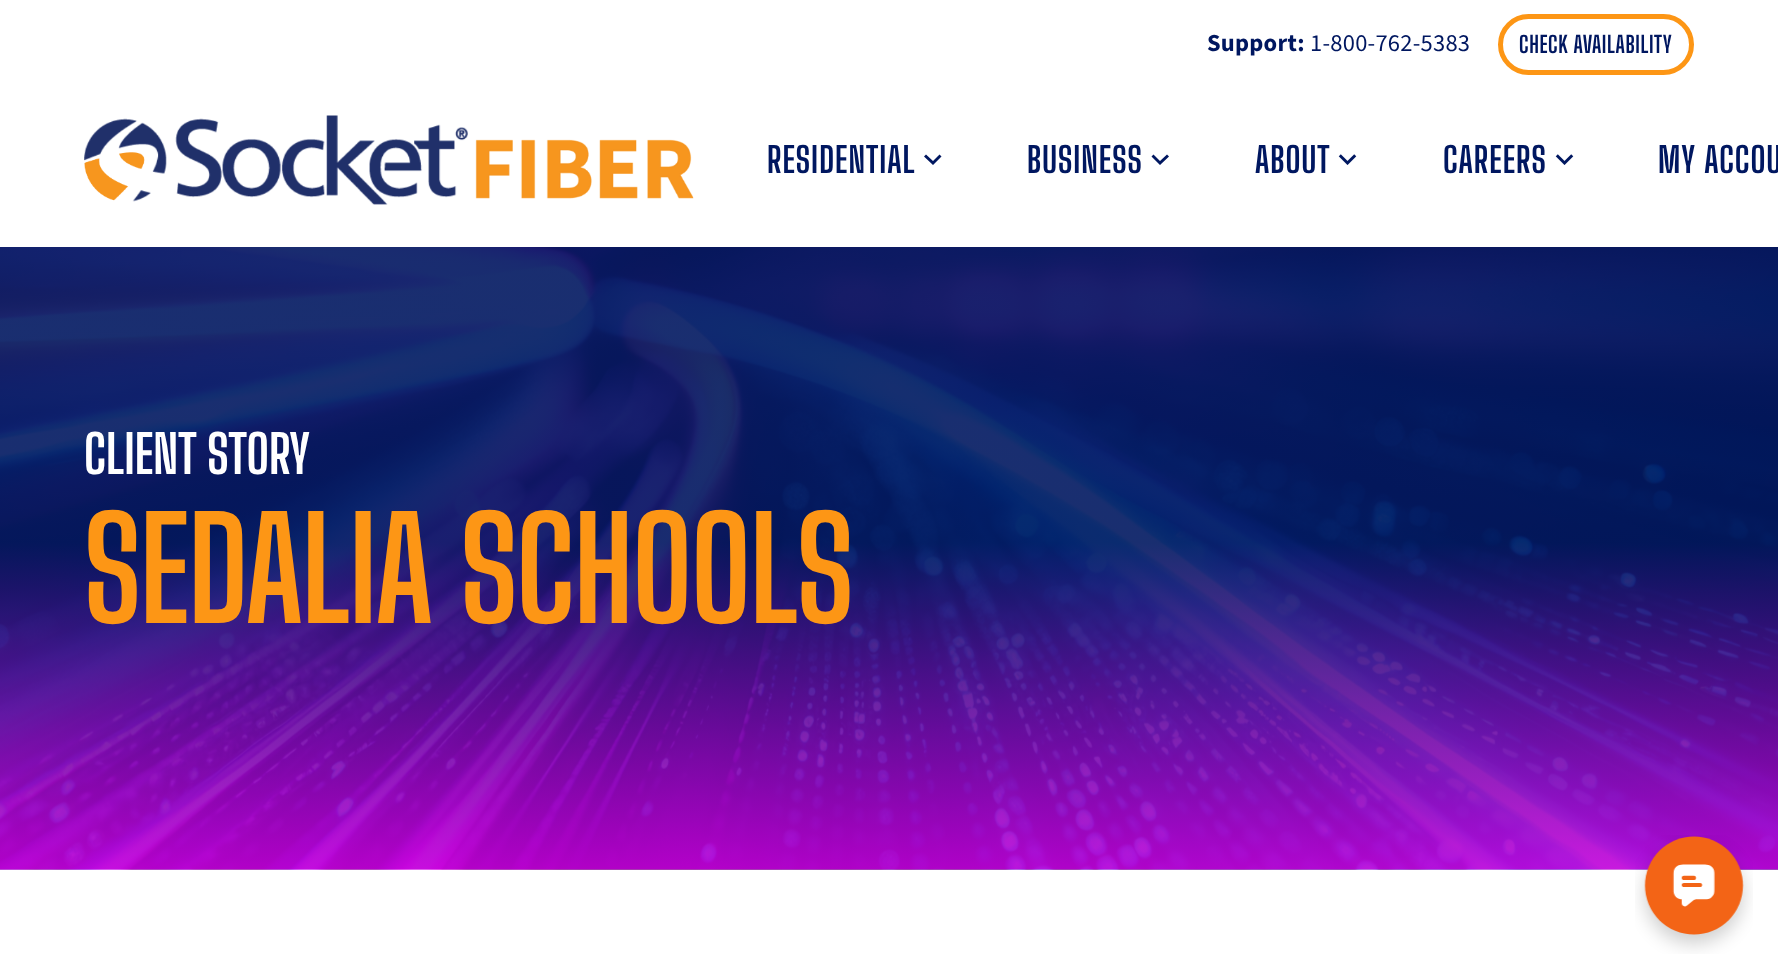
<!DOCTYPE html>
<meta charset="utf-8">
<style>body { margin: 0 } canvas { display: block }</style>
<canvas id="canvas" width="1778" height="969"></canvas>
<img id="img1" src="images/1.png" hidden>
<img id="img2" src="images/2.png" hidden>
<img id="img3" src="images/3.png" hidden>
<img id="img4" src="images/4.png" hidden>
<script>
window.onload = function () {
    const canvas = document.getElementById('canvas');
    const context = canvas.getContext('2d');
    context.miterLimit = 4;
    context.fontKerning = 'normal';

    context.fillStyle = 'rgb(255, 255, 255)';
    context.fillRect(0, 0, 1778, 969);
    context.beginPath();
    context.roundRect(1500.5, 16.5, 191, 56, 28);
    context.strokeStyle = 'rgb(253, 150, 21)';
    context.lineWidth = 5;
    context.stroke();
    context.drawImage(document.getElementById('img1'), 84, 115, 610, 90);
    context.fillStyle = 'rgb(0, 23, 96)';
    context.beginPath();
    context.moveTo(926, 154.5);
    context.lineTo(933, 161);
    context.lineTo(939.5, 154.5);
    context.lineTo(941.5, 156.5);
    context.lineTo(933, 165);
    context.lineTo(924, 156.5);
    context.closePath();
    context.fill();
    context.beginPath();
    context.moveTo(1153.5, 154.5);
    context.lineTo(1160, 161);
    context.lineTo(1167, 154.5);
    context.lineTo(1169, 156.5);
    context.lineTo(1160, 165);
    context.lineTo(1151.5, 156.5);
    context.closePath();
    context.fill();
    context.drawImage(document.getElementById('img2'), 1338, 154, 19, 11);
    context.drawImage(document.getElementById('img2'), 1555, 154, 19, 11);
    context.drawImage(document.getElementById('img3'), 0, 247, 1778, 623);
    context.drawImage(document.getElementById('img4'), 1635, 835, 118, 119);
    context.letterSpacing = '0.25px';
    context.font = 'bold 24.5px "Source Sans 3"';
    context.fillText('Support:', 1207, 51);
    context.font = '24.5px "Source Sans 3"';
    context.fillText('1-800-762-5383', 1310, 51);
    context.letterSpacing = '0.6px';
    context.font = 'bold 22.75px Big Shoulders Display';
    context.fillText('CHECK AVAILABILITY', 1519, 53);
    context.letterSpacing = '1px';
    context.font = 'bold 35px Big Shoulders Display';
    context.fillText('RESIDENTIAL', 767, 173);
    context.fillText('BUSINESS', 1027, 173);
    context.fillText('ABOUT', 1255, 173);
    context.fillText('CAREERS', 1443, 173);
    context.fillText('MY ACCOU', 1658, 173);
    context.letterSpacing = '0px';
    context.font = 'bold 52.5px Big Shoulders Display';
    context.fillStyle = 'rgb(255, 255, 255)';
    context.fillText('CLIENT STORY', 84, 474);
    context.letterSpacing = '-1.2px';
    context.font = 'bold 140px Big Shoulders Display';
    context.fillStyle = 'rgb(253, 150, 21)';
    context.fillText('SEDALIA SCHOOLS', 84, 623);
};
</script>
